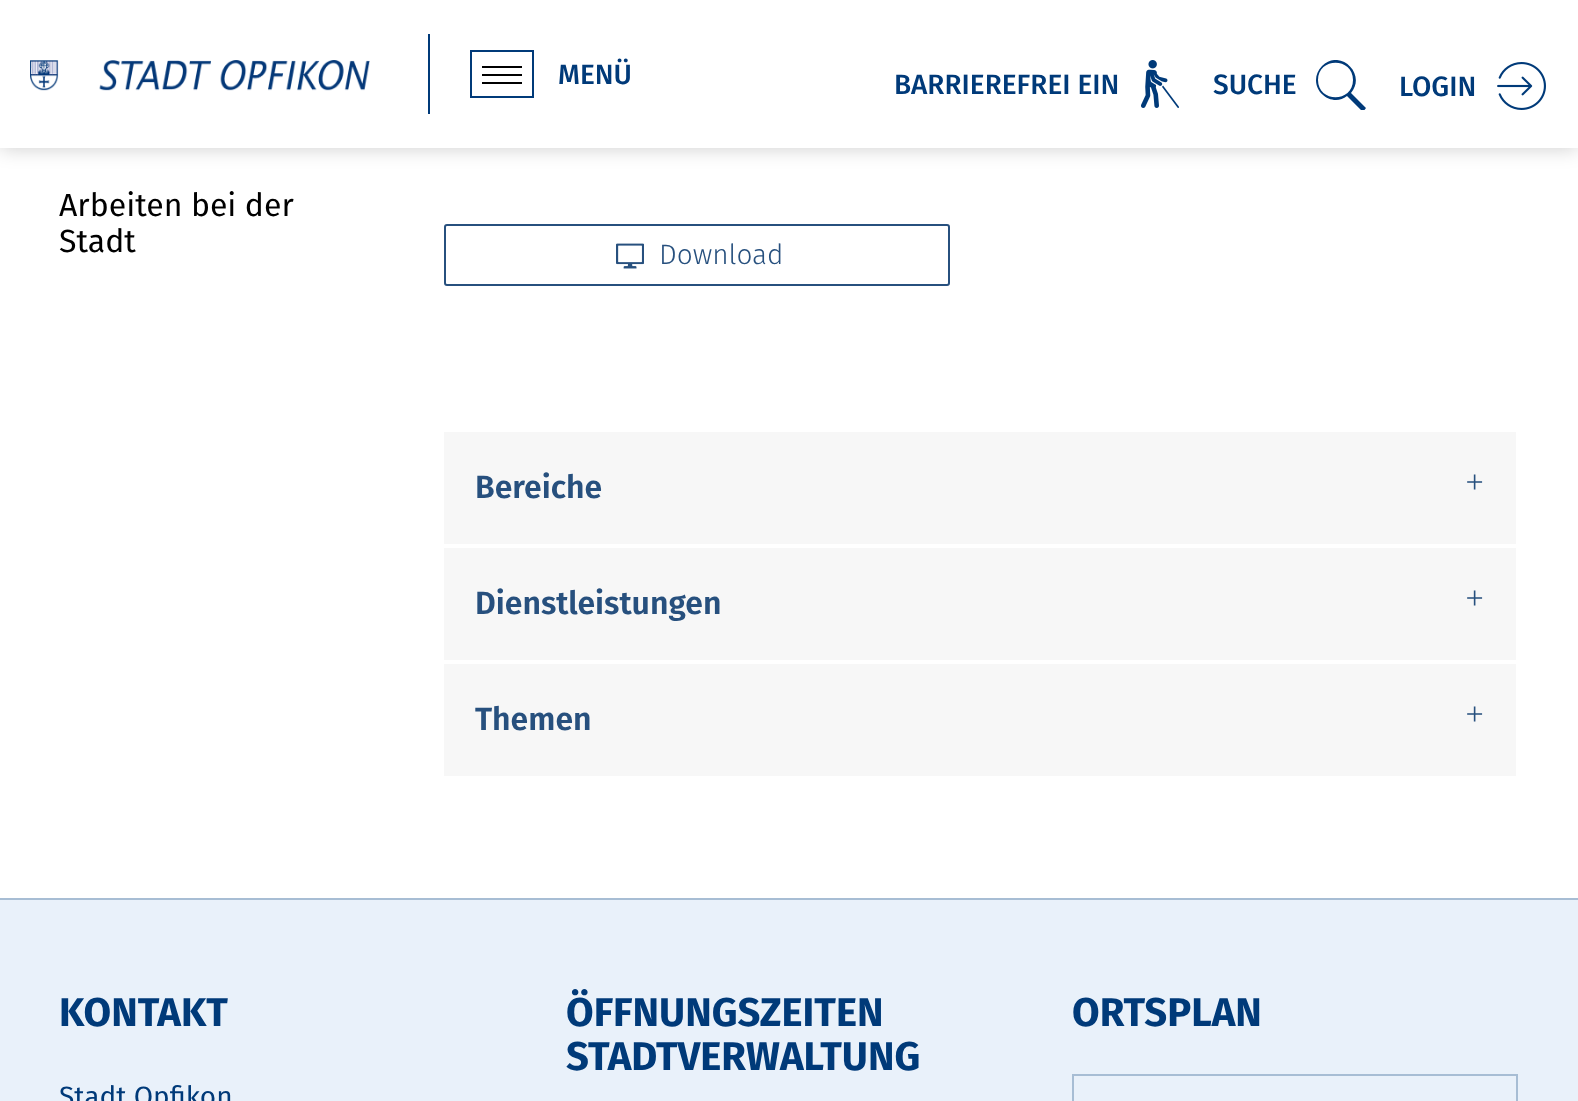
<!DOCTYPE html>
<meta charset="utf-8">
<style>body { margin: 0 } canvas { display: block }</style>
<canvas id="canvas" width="1578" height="1101"></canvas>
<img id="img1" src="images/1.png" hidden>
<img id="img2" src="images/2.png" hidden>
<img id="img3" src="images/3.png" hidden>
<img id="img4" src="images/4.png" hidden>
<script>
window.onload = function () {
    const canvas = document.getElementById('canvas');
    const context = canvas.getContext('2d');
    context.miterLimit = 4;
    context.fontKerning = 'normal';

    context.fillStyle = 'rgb(255, 255, 255)';
    context.fillRect(0, 0, 1578, 1101);
    context.fillStyle = 'rgba(0, 0, 0, 0.2)';
    context.filter = 'blur(10px)';
    context.beginPath();
    context.rect(0, 0, 1578, 148);
    context.fill();
    context.filter = 'none';
    context.fillStyle = 'rgb(255, 255, 255)';
    context.fillRect(0, 0, 1578, 148);
    context.drawImage(document.getElementById('img1'), 30, 60, 340, 31);
    context.fillStyle = 'rgb(0, 58, 121)';
    context.fillRect(428, 34, 2, 80);
    context.strokeStyle = 'rgb(0, 58, 121)';
    context.lineWidth = 2;
    context.strokeRect(471, 51, 62, 46);
    context.fillStyle = 'rgb(0, 0, 0)';
    context.fillRect(482, 66, 40, 2);
    context.fillRect(482, 74, 40, 2);
    context.fillRect(482, 82, 40, 2);
    context.drawImage(document.getElementById('img2'), 1141, 60, 38, 48);
    context.save();
    context.beginPath();
    context.rect(1316, 60, 50, 50);
    context.clip();
    context.fillStyle = 'rgb(0, 58, 121)';
    context.beginPath();
    context.moveTo(1316, 80);
    context.bezierCurveTo(1316, 75, 1318, 70, 1322, 66);
    context.bezierCurveTo(1340, 48, 1367, 74, 1351, 93);
    context.lineTo(1366, 108);
    context.lineTo(1363, 112);
    context.lineTo(1347, 96);
    context.bezierCurveTo(1335, 106, 1316, 96, 1316, 80);
    context.closePath();
    context.moveTo(1353, 80);
    context.bezierCurveTo(1353, 57, 1318, 57, 1318, 80);
    context.bezierCurveTo(1318, 103, 1353, 103, 1353, 80);
    context.closePath();
    context.fill('evenodd');
    context.restore();
    context.drawImage(document.getElementById('img3'), 1497, 62, 49, 48);
    context.beginPath();
    context.roundRect(445, 225, 504, 60, 2);
    context.strokeStyle = 'rgb(39, 80, 126)';
    context.stroke();
    context.drawImage(document.getElementById('img4'), 616, 243, 28, 26);
    context.fillStyle = 'rgb(247, 247, 247)';
    context.fillRect(444, 432, 1072, 112);
    context.fillRect(444, 548, 1072, 112);
    context.fillRect(444, 664, 1072, 112);
    context.fillStyle = 'rgb(233, 241, 250)';
    context.fillRect(0, 900, 1578, 201);
    context.fillStyle = 'rgb(167, 189, 212)';
    context.fillRect(0, 898, 1578, 2);
    context.strokeStyle = 'rgb(167, 189, 212)';
    context.strokeRect(1073, 1075, 444, 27);
    context.font = '500 28px Fira Sans';
    context.fillStyle = 'rgb(0, 58, 121)';
    context.fillText('MENÜ', 558, 84);
    context.fillText('BARRIEREFREI EIN', 894, 94);
    context.fillText('SUCHE', 1213, 94);
    context.fillText('LOGIN', 1399, 96);
    context.font = '32px Fira Sans';
    context.fillStyle = 'rgb(0, 0, 0)';
    context.fillText('Arbeiten bei der', 59, 216);
    context.fillText('Stadt', 59, 252);
    context.font = '300 28px Fira Sans';
    context.fillStyle = 'rgb(39, 80, 126)';
    context.fillText('Download', 659, 264);
    context.font = '600 32px Fira Sans';
    context.fillText('Bereiche', 475, 498);
    context.font = '32px Liberation Serif';
    context.save();
    context.translate(1464, 473);
    context.rotate(90 * Math.PI / 180);
    context.fillText('+', 0, 0);
    context.restore();
    context.font = '600 32px Fira Sans';
    context.fillText('Dienstleistungen', 475, 614);
    context.font = '32px Liberation Serif';
    context.save();
    context.translate(1464, 589);
    context.rotate(90 * Math.PI / 180);
    context.fillText('+', 0, 0);
    context.restore();
    context.font = '600 32px Fira Sans';
    context.fillText('Themen', 475, 730);
    context.font = '32px Liberation Serif';
    context.save();
    context.translate(1464, 705);
    context.rotate(90 * Math.PI / 180);
    context.fillText('+', 0, 0);
    context.restore();
    context.font = 'bold 40px Fira Sans';
    context.fillStyle = 'rgb(0, 58, 121)';
    context.fillText('KONTAKT', 59, 1026);
    context.font = '28px Fira Sans';
    context.fillText('Stadt Opfikon', 59, 1106);
    context.font = 'bold 40px Fira Sans';
    context.fillText('ÖFFNUNGSZEITEN', 566, 1026);
    context.fillText('STADTVERWALTUNG', 566, 1070);
    context.fillText('ORTSPLAN', 1072, 1026);
};
</script>
